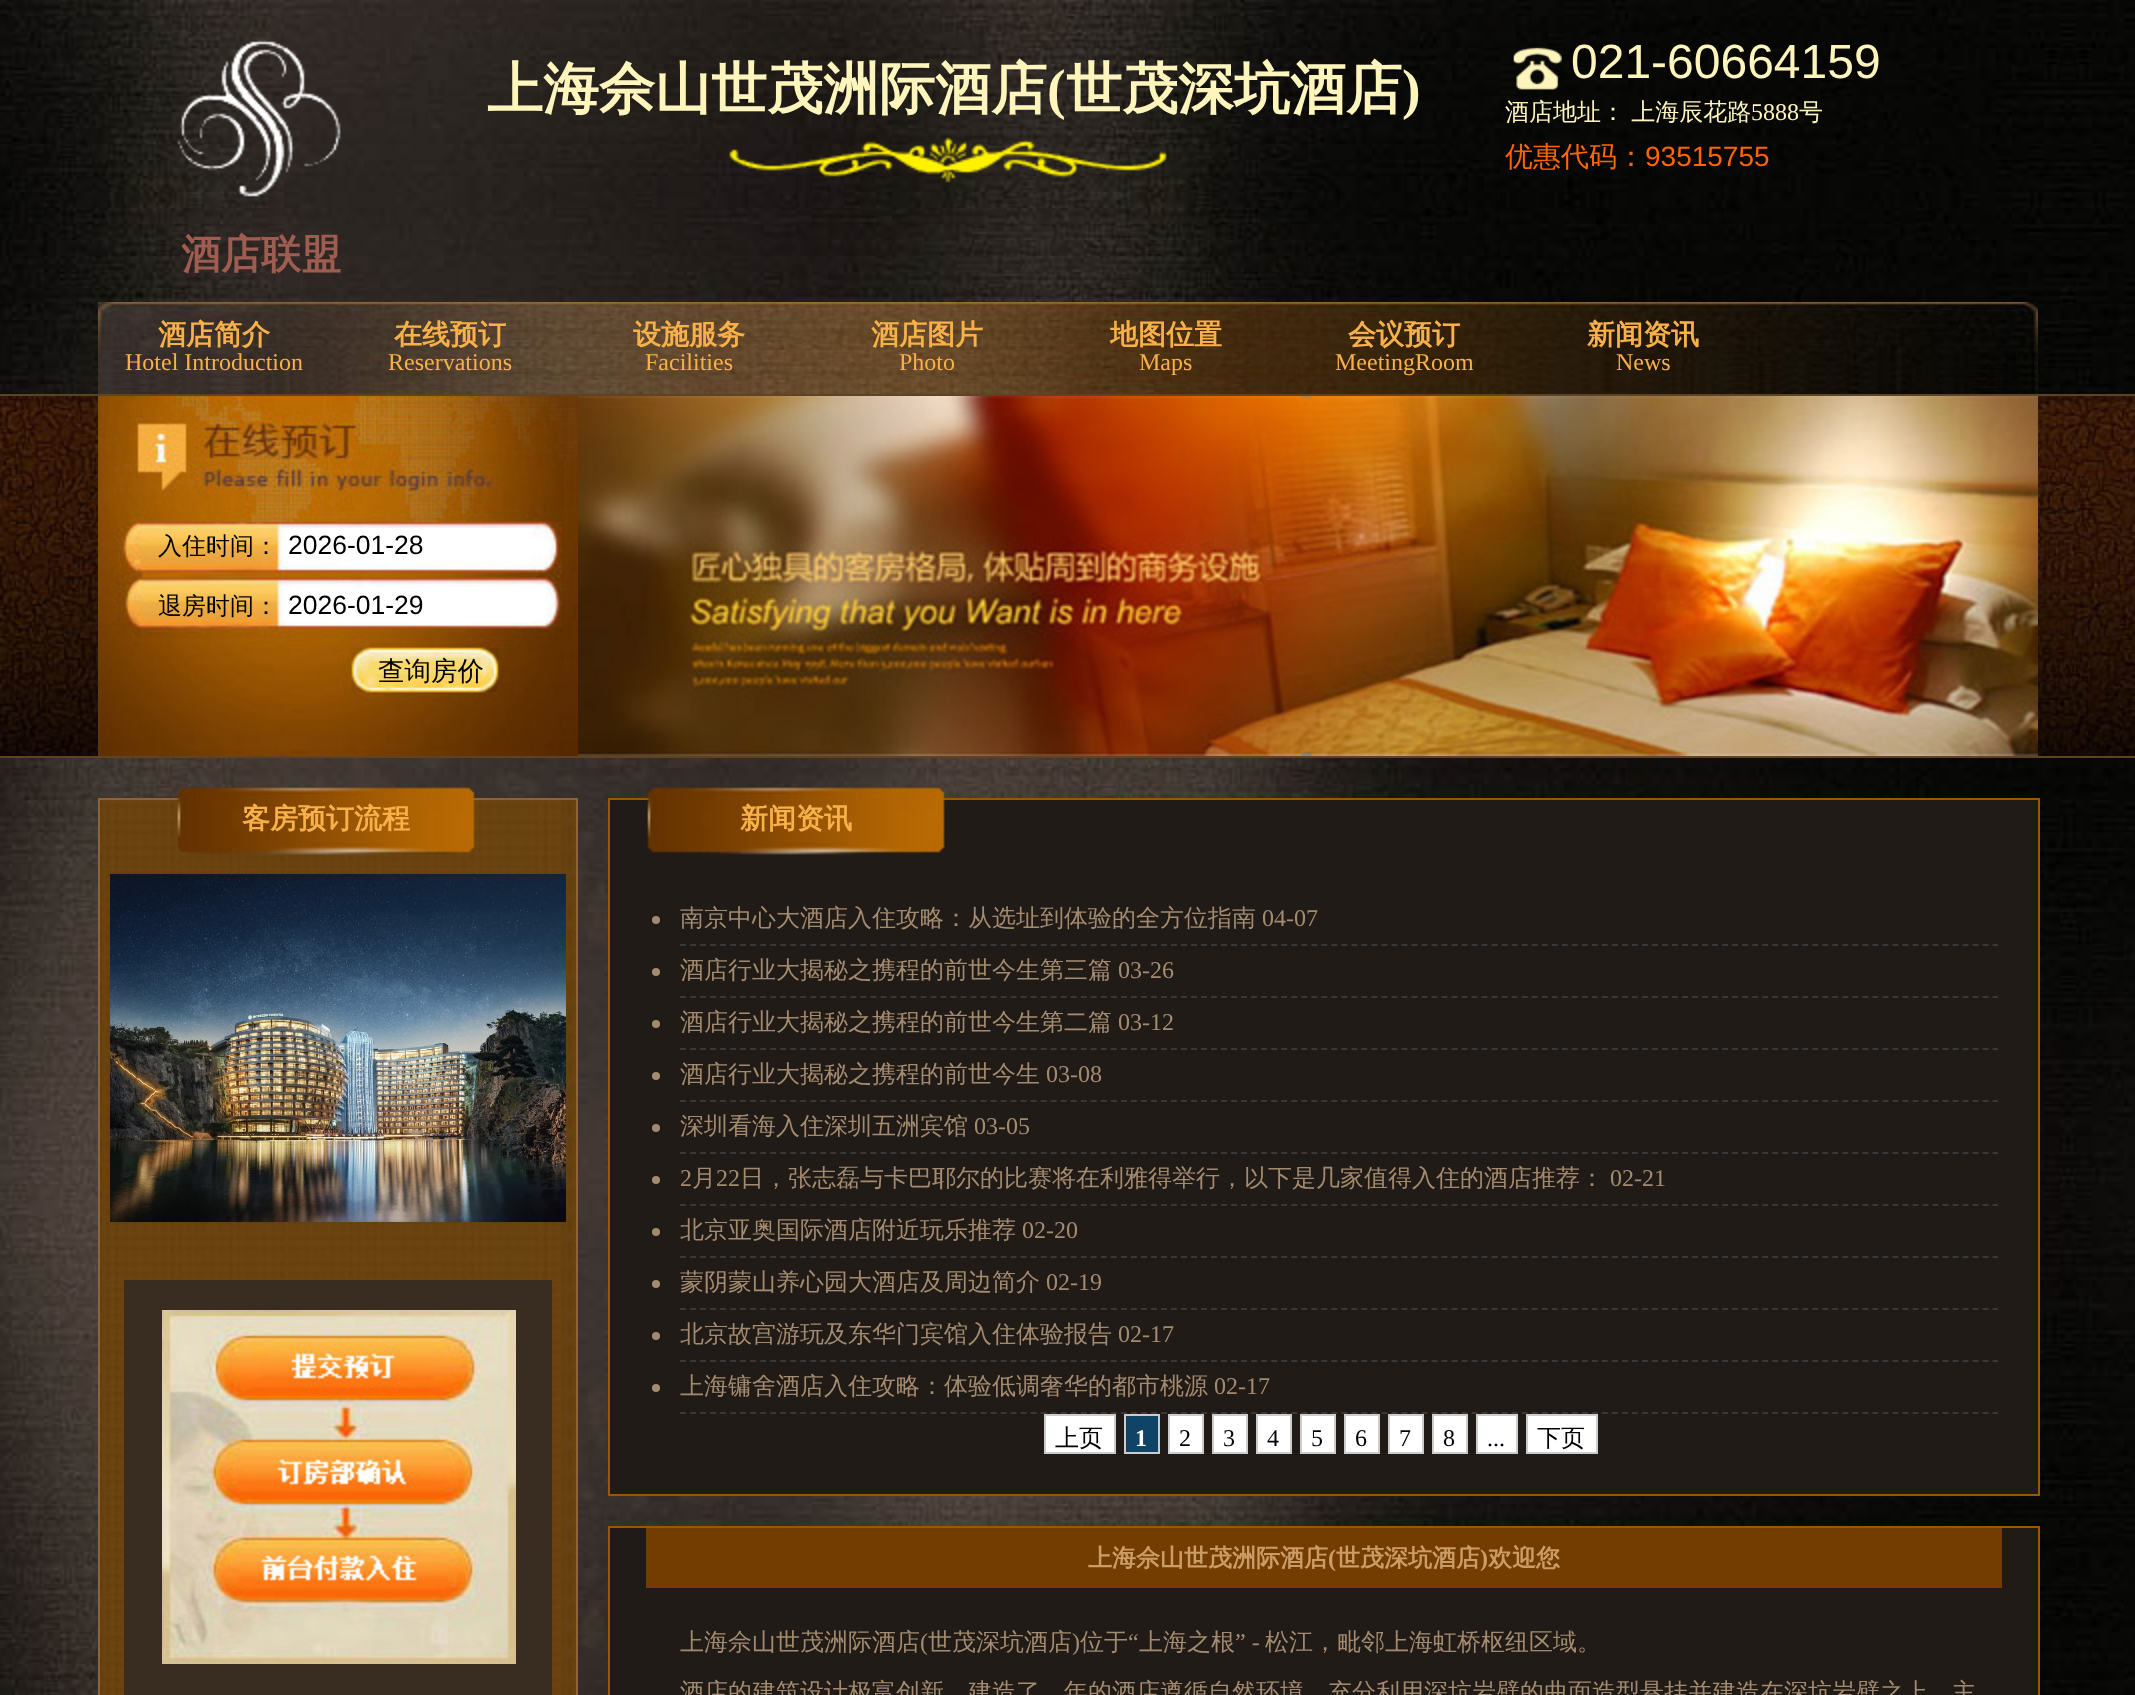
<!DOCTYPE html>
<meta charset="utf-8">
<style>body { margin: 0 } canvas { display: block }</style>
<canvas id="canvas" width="2135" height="1695"></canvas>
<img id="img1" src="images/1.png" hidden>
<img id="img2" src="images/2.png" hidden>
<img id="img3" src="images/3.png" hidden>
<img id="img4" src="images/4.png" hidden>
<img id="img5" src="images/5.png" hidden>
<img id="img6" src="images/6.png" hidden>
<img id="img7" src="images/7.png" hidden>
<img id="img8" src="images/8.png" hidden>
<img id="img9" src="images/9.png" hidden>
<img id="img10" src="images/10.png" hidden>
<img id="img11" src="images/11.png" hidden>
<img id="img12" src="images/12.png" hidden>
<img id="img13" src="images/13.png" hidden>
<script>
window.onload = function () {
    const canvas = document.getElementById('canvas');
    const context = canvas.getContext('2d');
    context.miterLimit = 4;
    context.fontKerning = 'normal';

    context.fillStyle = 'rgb(255, 255, 255)';
    context.fillRect(0, 0, 2135, 1695);
    context.drawImage(document.getElementById('img1'), 0, 0, 2135, 1695);
    context.drawImage(document.getElementById('img2'), 729, 137, 438, 46);
    context.drawImage(document.getElementById('img3'), 1513, 47, 49, 43);
    context.drawImage(document.getElementById('img4'), 177, 39, 164, 158);
    context.drawImage(document.getElementById('img5'), 98, 302, 1940, 92);
    context.drawImage(document.getElementById('img6'), 0, 396, 2135, 360);
    context.fillStyle = 'rgb(95, 66, 34)';
    context.fillRect(0, 394, 2135, 2);
    context.fillRect(0, 756, 2135, 2);
    context.drawImage(document.getElementById('img7'), 98, 396, 480, 360);
    context.fillStyle = 'rgb(255, 255, 255)';
    context.fillRect(284, 528, 248, 34);
    context.fillRect(284, 588, 248, 34);
    context.drawImage(document.getElementById('img8'), 578, 396, 1460, 360);
    context.drawImage(document.getElementById('img9'), 100, 800, 476, 895);
    context.strokeStyle = 'rgb(143, 98, 57)';
    context.lineWidth = 2;
    context.strokeRect(99, 799, 478, 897);
    context.drawImage(document.getElementById('img10'), 177, 787, 298, 68);
    context.drawImage(document.getElementById('img11'), 110, 874, 456, 348);
    context.fillStyle = 'rgb(57, 45, 33)';
    context.fillRect(124, 1280, 428, 415);
    context.drawImage(document.getElementById('img12'), 162, 1310, 354, 354);
    context.fillStyle = 'rgb(32, 27, 23)';
    context.beginPath();
    context.rect(609, 799, 1430, 696);
    context.fill();
    context.strokeStyle = 'rgb(155, 87, 2)';
    context.stroke();
    context.drawImage(document.getElementById('img13'), 647, 787, 298, 68);
    context.beginPath();
    context.moveTo(680, 945);
    context.lineTo(1998, 945);
    context.strokeStyle = 'rgb(56, 56, 56)';
    context.setLineDash([6, 4.02]);
    context.stroke();
    context.fillStyle = 'rgb(164, 139, 111)';
    context.beginPath();
    context.arc(656, 920, 4, 0, 2 * Math.PI);
    context.fill();
    context.beginPath();
    context.moveTo(680, 997);
    context.lineTo(1998, 997);
    context.stroke();
    context.beginPath();
    context.arc(656, 972, 4, 0, 2 * Math.PI);
    context.fill();
    context.beginPath();
    context.moveTo(680, 1049);
    context.lineTo(1998, 1049);
    context.stroke();
    context.beginPath();
    context.arc(656, 1024, 4, 0, 2 * Math.PI);
    context.fill();
    context.beginPath();
    context.moveTo(680, 1101);
    context.lineTo(1998, 1101);
    context.stroke();
    context.beginPath();
    context.arc(656, 1076, 4, 0, 2 * Math.PI);
    context.fill();
    context.beginPath();
    context.moveTo(680, 1153);
    context.lineTo(1998, 1153);
    context.stroke();
    context.beginPath();
    context.arc(656, 1128, 4, 0, 2 * Math.PI);
    context.fill();
    context.beginPath();
    context.moveTo(680, 1205);
    context.lineTo(1998, 1205);
    context.stroke();
    context.beginPath();
    context.arc(656, 1180, 4, 0, 2 * Math.PI);
    context.fill();
    context.beginPath();
    context.moveTo(680, 1257);
    context.lineTo(1998, 1257);
    context.stroke();
    context.beginPath();
    context.arc(656, 1232, 4, 0, 2 * Math.PI);
    context.fill();
    context.beginPath();
    context.moveTo(680, 1309);
    context.lineTo(1998, 1309);
    context.stroke();
    context.beginPath();
    context.arc(656, 1284, 4, 0, 2 * Math.PI);
    context.fill();
    context.beginPath();
    context.moveTo(680, 1361);
    context.lineTo(1998, 1361);
    context.stroke();
    context.beginPath();
    context.arc(656, 1336, 4, 0, 2 * Math.PI);
    context.fill();
    context.beginPath();
    context.moveTo(680, 1413);
    context.lineTo(1998, 1413);
    context.stroke();
    context.beginPath();
    context.arc(656, 1388, 4, 0, 2 * Math.PI);
    context.fill();
    context.fillStyle = 'rgb(255, 255, 255)';
    context.beginPath();
    context.rect(1045, 1415, 70, 38);
    context.fill();
    context.strokeStyle = 'rgb(204, 204, 204)';
    context.setLineDash([]);
    context.stroke();
    context.fillStyle = 'rgb(15, 68, 102)';
    context.beginPath();
    context.rect(1125, 1415, 34, 38);
    context.fill();
    context.stroke();
    context.fillStyle = 'rgb(255, 255, 255)';
    context.beginPath();
    context.rect(1169, 1415, 34, 38);
    context.fill();
    context.stroke();
    context.beginPath();
    context.rect(1213, 1415, 34, 38);
    context.fill();
    context.stroke();
    context.beginPath();
    context.rect(1257, 1415, 34, 38);
    context.fill();
    context.stroke();
    context.beginPath();
    context.rect(1301, 1415, 34, 38);
    context.fill();
    context.stroke();
    context.beginPath();
    context.rect(1345, 1415, 34, 38);
    context.fill();
    context.stroke();
    context.beginPath();
    context.rect(1389, 1415, 34, 38);
    context.fill();
    context.stroke();
    context.beginPath();
    context.rect(1433, 1415, 34, 38);
    context.fill();
    context.stroke();
    context.beginPath();
    context.rect(1477, 1415, 40, 38);
    context.fill();
    context.stroke();
    context.beginPath();
    context.rect(1527, 1415, 70, 38);
    context.fill();
    context.stroke();
    context.fillStyle = 'rgb(32, 27, 23)';
    context.beginPath();
    context.rect(609, 1527, 1430, 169);
    context.fill();
    context.strokeStyle = 'rgb(155, 87, 2)';
    context.stroke();
    context.fillStyle = 'rgb(115, 61, 1)';
    context.fillRect(646, 1528, 1356, 60);
    context.font = 'bold 56px WenQuanYi Zen Hei';
    context.fillStyle = 'rgb(254, 245, 188)';
    context.fillText('上海佘山世茂洲际酒店', 487, 108);
    context.font = 'bold 56px Liberation Serif';
    context.fillText('(', 1047, 108);
    context.font = 'bold 56px WenQuanYi Zen Hei';
    context.fillText('世茂深坑酒店', 1066, 108);
    context.font = 'bold 56px Liberation Serif';
    context.fillText(')', 1402, 108);
    context.font = '48px Liberation Sans';
    context.fillText('021-60664159', 1571, 78);
    context.wordSpacing = '-1px';
    context.font = '500 24px WenQuanYi Zen Hei';
    context.fillText('酒店地址： 上海辰花路', 1505, 120);
    context.wordSpacing = '0px';
    context.font = '24px Liberation Serif';
    context.fillText('5888', 1751, 120);
    context.font = '500 24px WenQuanYi Zen Hei';
    context.fillText('号', 1799, 120);
    context.font = '500 28px WenQuanYi Zen Hei';
    context.fillStyle = 'rgb(255, 102, 0)';
    context.fillText('优惠代码：', 1505, 166);
    context.font = '28px Liberation Sans';
    context.fillText('93515755', 1645, 166);
    context.font = 'bold 40px WenQuanYi Zen Hei';
    context.fillStyle = 'rgb(159, 92, 80)';
    context.fillText('酒店联盟', 181, 268);
    context.font = 'bold 28px WenQuanYi Zen Hei';
    context.fillStyle = 'rgb(248, 177, 73)';
    context.fillText('酒店简介', 158, 344);
    context.font = '24px Liberation Serif';
    context.fillText('Hotel Introduction', 125, 370);
    context.font = 'bold 28px WenQuanYi Zen Hei';
    context.fillText('在线预订', 394, 344);
    context.font = '24px Liberation Serif';
    context.fillText('Reservations', 388, 370);
    context.font = 'bold 28px WenQuanYi Zen Hei';
    context.fillText('设施服务', 633, 344);
    context.font = '24px Liberation Serif';
    context.fillText('Facilities', 645, 370);
    context.font = 'bold 28px WenQuanYi Zen Hei';
    context.fillText('酒店图片', 871, 344);
    context.font = '24px Liberation Serif';
    context.fillText('Photo', 899, 370);
    context.font = 'bold 28px WenQuanYi Zen Hei';
    context.fillText('地图位置', 1110, 344);
    context.font = '24px Liberation Serif';
    context.fillText('Maps', 1139, 370);
    context.font = 'bold 28px WenQuanYi Zen Hei';
    context.fillText('会议预订', 1348, 344);
    context.font = '24px Liberation Serif';
    context.fillText('MeetingRoom', 1335, 370);
    context.font = 'bold 28px WenQuanYi Zen Hei';
    context.fillText('新闻资讯', 1587, 344);
    context.font = '24px Liberation Serif';
    context.fillText('News', 1616, 370);
    context.font = '500 24px WenQuanYi Zen Hei';
    context.fillStyle = 'rgb(0, 0, 0)';
    context.fillText('入住时间：', 158, 554);
    context.font = '26.5px Liberation Sans';
    context.fillText('2026-01-28', 288, 554);
    context.font = '500 24px WenQuanYi Zen Hei';
    context.fillText('退房时间：', 158, 614);
    context.font = '26.5px Liberation Sans';
    context.fillText('2026-01-29', 288, 614);
    context.font = '500 26.5px WenQuanYi Zen Hei';
    context.fillText('查询房价', 378, 680);
    context.font = 'bold 28px WenQuanYi Zen Hei';
    context.fillStyle = 'rgb(248, 177, 73)';
    context.fillText('客房预订流程', 242, 828);
    context.fillText('新闻资讯', 740, 828);
    context.font = '500 24px WenQuanYi Zen Hei';
    context.fillStyle = 'rgb(164, 139, 111)';
    context.fillText('南京中心大酒店入住攻略：从选址到体验的全方位指南', 680, 926);
    context.font = '24px Liberation Serif';
    context.fillText('04-07', 1262, 926);
    context.font = '500 24px WenQuanYi Zen Hei';
    context.fillText('酒店行业大揭秘之携程的前世今生第三篇', 680, 978);
    context.font = '24px Liberation Serif';
    context.fillText('03-26', 1118, 978);
    context.font = '500 24px WenQuanYi Zen Hei';
    context.fillText('酒店行业大揭秘之携程的前世今生第二篇', 680, 1030);
    context.font = '24px Liberation Serif';
    context.fillText('03-12', 1118, 1030);
    context.font = '500 24px WenQuanYi Zen Hei';
    context.fillText('酒店行业大揭秘之携程的前世今生', 680, 1082);
    context.font = '24px Liberation Serif';
    context.fillText('03-08', 1046, 1082);
    context.font = '500 24px WenQuanYi Zen Hei';
    context.fillText('深圳看海入住深圳五洲宾馆', 680, 1134);
    context.font = '24px Liberation Serif';
    context.fillText('03-05', 974, 1134);
    context.fillText('2', 680, 1186);
    context.font = '500 24px WenQuanYi Zen Hei';
    context.fillText('月', 692, 1186);
    context.font = '24px Liberation Serif';
    context.fillText('22', 716, 1186);
    context.font = '500 24px WenQuanYi Zen Hei';
    context.fillText('日，张志磊与卡巴耶尔的比赛将在利雅得举行，以下是几家值得入住的酒店推荐：', 740, 1186);
    context.font = '24px Liberation Serif';
    context.fillText('02-21', 1610, 1186);
    context.font = '500 24px WenQuanYi Zen Hei';
    context.fillText('北京亚奥国际酒店附近玩乐推荐', 680, 1238);
    context.font = '24px Liberation Serif';
    context.fillText('02-20', 1022, 1238);
    context.font = '500 24px WenQuanYi Zen Hei';
    context.fillText('蒙阴蒙山养心园大酒店及周边简介', 680, 1290);
    context.font = '24px Liberation Serif';
    context.fillText('02-19', 1046, 1290);
    context.font = '500 24px WenQuanYi Zen Hei';
    context.fillText('北京故宫游玩及东华门宾馆入住体验报告', 680, 1342);
    context.font = '24px Liberation Serif';
    context.fillText('02-17', 1118, 1342);
    context.font = '500 24px WenQuanYi Zen Hei';
    context.fillText('上海镛舍酒店入住攻略：体验低调奢华的都市桃源', 680, 1394);
    context.font = '24px Liberation Serif';
    context.fillText('02-17', 1214, 1394);
    context.font = '500 24px WenQuanYi Zen Hei';
    context.fillStyle = 'rgb(0, 0, 0)';
    context.fillText('上页', 1055, 1446);
    context.font = 'bold 24px Liberation Serif';
    context.fillStyle = 'rgb(255, 255, 255)';
    context.fillText('1', 1135, 1446);
    context.font = '24px Liberation Serif';
    context.fillStyle = 'rgb(0, 0, 0)';
    context.fillText('2', 1179, 1446);
    context.fillText('3', 1223, 1446);
    context.fillText('4', 1267, 1446);
    context.fillText('5', 1311, 1446);
    context.fillText('6', 1355, 1446);
    context.fillText('7', 1399, 1446);
    context.fillText('8', 1443, 1446);
    context.fillText('...', 1487, 1446);
    context.font = '500 24px WenQuanYi Zen Hei';
    context.fillText('下页', 1537, 1446);
    context.font = 'bold 24px WenQuanYi Zen Hei';
    context.fillStyle = 'rgb(204, 156, 102)';
    context.fillText('上海佘山世茂洲际酒店', 1088, 1566);
    context.font = 'bold 24px Liberation Serif';
    context.fillText('(', 1328, 1566);
    context.font = 'bold 24px WenQuanYi Zen Hei';
    context.fillText('世茂深坑酒店', 1336, 1566);
    context.font = 'bold 24px Liberation Serif';
    context.fillText(')', 1480, 1566);
    context.font = 'bold 24px WenQuanYi Zen Hei';
    context.fillText('欢迎您', 1488, 1566);
    context.font = '500 24px WenQuanYi Zen Hei';
    context.fillStyle = 'rgb(164, 139, 111)';
    context.fillText('上海佘山世茂洲际酒店', 680, 1650);
    context.font = '24px Liberation Serif';
    context.fillText('(', 920, 1650);
    context.font = '500 24px WenQuanYi Zen Hei';
    context.fillText('世茂深坑酒店', 928, 1650);
    context.font = '24px Liberation Serif';
    context.fillText(')', 1072, 1650);
    context.font = '500 24px WenQuanYi Zen Hei';
    context.fillText('位于', 1080, 1650);
    context.font = '24px Liberation Serif';
    context.fillText('“', 1128, 1650);
    context.font = '500 24px WenQuanYi Zen Hei';
    context.fillText('上海之根', 1139, 1650);
    context.font = '24px Liberation Serif';
    context.fillText('” -', 1235, 1650);
    context.font = '500 24px WenQuanYi Zen Hei';
    context.fillText('松江，毗邻上海虹桥枢纽区域。', 1265, 1650);
    context.fillText('酒店的建筑设计极富创新，建造了', 680, 1700);
    context.fillText('年的酒店遵循自然环境，充分利用深坑岩壁的曲面造型悬挂并建造在深坑岩壁之上，主', 1064, 1700);
};
</script>
